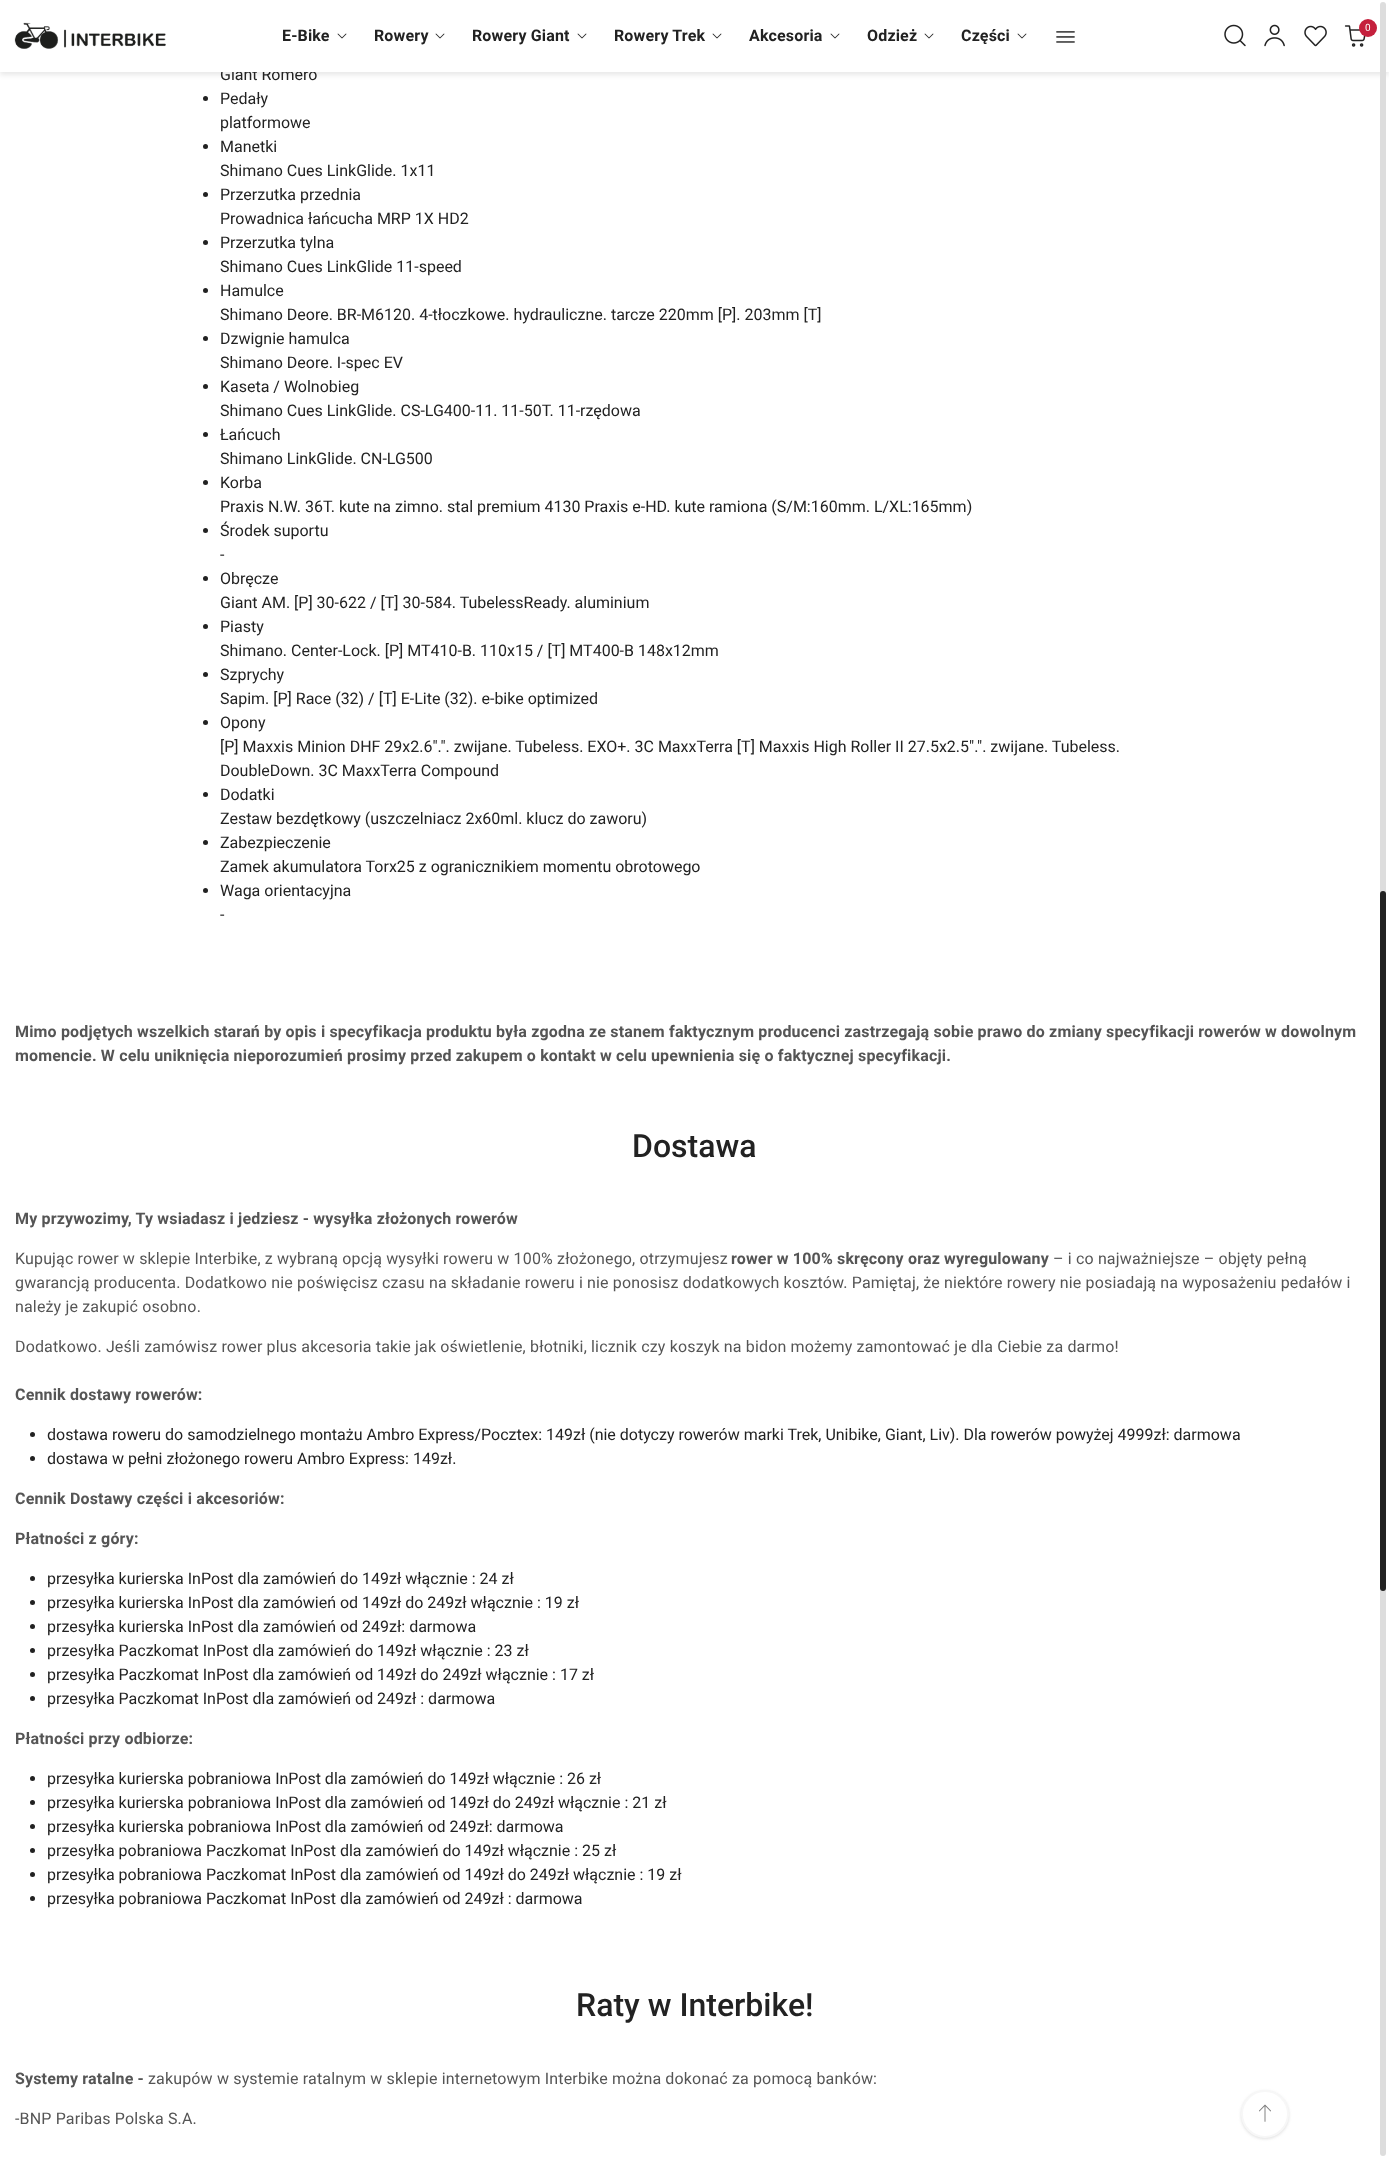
<!DOCTYPE html>
<meta charset="utf-8">
<style>body { margin: 0 } canvas { display: block }</style>
<canvas id="canvas" width="1389" height="2158"></canvas>
<img id="img1" src="images/1.png" hidden>
<img id="img2" src="images/6.png" hidden>
<img id="img3" src="images/5.png" hidden>
<img id="img4" src="images/4.png" hidden>
<img id="img5" src="images/3.png" hidden>
<img id="img6" src="images/8.png" hidden>
<img id="img7" src="images/7.png" hidden>
<img id="img8" src="images/2.png" hidden>
<script>
window.onload = function () {
    const canvas = document.getElementById('canvas');
    const context = canvas.getContext('2d');
    context.miterLimit = 4;
    context.fontKerning = 'normal';

    context.fillStyle = 'rgb(255, 255, 255)';
    context.fillRect(0, 0, 1389, 2158);
    context.fillStyle = 'rgba(102, 102, 102, 0.2)';
    context.filter = 'blur(1.5px)';
    context.beginPath();
    context.roundRect(1241, 2091, 48, 48, 24);
    context.fill();
    context.filter = 'none';
    context.fillStyle = 'rgb(255, 255, 255)';
    context.beginPath();
    context.arc(1265, 2114, 23, 0, 2 * Math.PI);
    context.fill();
    context.strokeStyle = 'rgb(247, 247, 247)';
    context.lineWidth = 2;
    context.stroke();
    context.drawImage(document.getElementById('img1'), 1259, 2104, 12, 18);
    context.fillStyle = 'rgba(0, 0, 0, 0.09)';
    context.filter = 'blur(2.5px)';
    context.beginPath();
    context.rect(0, 3, 1389, 72);
    context.fill();
    context.filter = 'none';
    context.fillStyle = 'rgb(34, 34, 34)';
    context.beginPath();
    context.arc(205.5, 98.5, 2.5, 0, 2 * Math.PI);
    context.fill();
    context.beginPath();
    context.arc(205.5, 146.5, 2.5, 0, 2 * Math.PI);
    context.fill();
    context.beginPath();
    context.arc(205.5, 194.5, 2.5, 0, 2 * Math.PI);
    context.fill();
    context.beginPath();
    context.arc(205.5, 242.5, 2.5, 0, 2 * Math.PI);
    context.fill();
    context.beginPath();
    context.arc(205.5, 290.5, 2.5, 0, 2 * Math.PI);
    context.fill();
    context.beginPath();
    context.arc(205.5, 338.5, 2.5, 0, 2 * Math.PI);
    context.fill();
    context.beginPath();
    context.arc(205.5, 386.5, 2.5, 0, 2 * Math.PI);
    context.fill();
    context.beginPath();
    context.arc(205.5, 434.5, 2.5, 0, 2 * Math.PI);
    context.fill();
    context.beginPath();
    context.arc(205.5, 482.5, 2.5, 0, 2 * Math.PI);
    context.fill();
    context.beginPath();
    context.arc(205.5, 530.5, 2.5, 0, 2 * Math.PI);
    context.fill();
    context.beginPath();
    context.arc(205.5, 578.5, 2.5, 0, 2 * Math.PI);
    context.fill();
    context.beginPath();
    context.arc(205.5, 626.5, 2.5, 0, 2 * Math.PI);
    context.fill();
    context.beginPath();
    context.arc(205.5, 674.5, 2.5, 0, 2 * Math.PI);
    context.fill();
    context.beginPath();
    context.arc(205.5, 722.5, 2.5, 0, 2 * Math.PI);
    context.fill();
    context.beginPath();
    context.arc(205.5, 794.5, 2.5, 0, 2 * Math.PI);
    context.fill();
    context.beginPath();
    context.arc(205.5, 842.5, 2.5, 0, 2 * Math.PI);
    context.fill();
    context.beginPath();
    context.arc(205.5, 890.5, 2.5, 0, 2 * Math.PI);
    context.fill();
    context.beginPath();
    context.arc(32.5, 1434.5, 2.5, 0, 2 * Math.PI);
    context.fill();
    context.beginPath();
    context.arc(32.5, 1458.5, 2.5, 0, 2 * Math.PI);
    context.fill();
    context.beginPath();
    context.arc(32.5, 1578.5, 2.5, 0, 2 * Math.PI);
    context.fill();
    context.beginPath();
    context.arc(32.5, 1602.5, 2.5, 0, 2 * Math.PI);
    context.fill();
    context.beginPath();
    context.arc(32.5, 1626.5, 2.5, 0, 2 * Math.PI);
    context.fill();
    context.beginPath();
    context.arc(32.5, 1650.5, 2.5, 0, 2 * Math.PI);
    context.fill();
    context.beginPath();
    context.arc(32.5, 1674.5, 2.5, 0, 2 * Math.PI);
    context.fill();
    context.beginPath();
    context.arc(32.5, 1698.5, 2.5, 0, 2 * Math.PI);
    context.fill();
    context.beginPath();
    context.arc(32.5, 1778.5, 2.5, 0, 2 * Math.PI);
    context.fill();
    context.beginPath();
    context.arc(32.5, 1802.5, 2.5, 0, 2 * Math.PI);
    context.fill();
    context.beginPath();
    context.arc(32.5, 1826.5, 2.5, 0, 2 * Math.PI);
    context.fill();
    context.beginPath();
    context.arc(32.5, 1850.5, 2.5, 0, 2 * Math.PI);
    context.fill();
    context.beginPath();
    context.arc(32.5, 1874.5, 2.5, 0, 2 * Math.PI);
    context.fill();
    context.beginPath();
    context.arc(32.5, 1898.5, 2.5, 0, 2 * Math.PI);
    context.fill();
    context.font = '16px Roboto';
    context.fillText('Giant Romero', 220, 80);
    context.fillStyle = 'rgb(255, 255, 255)';
    context.fillRect(0, 0, 1389, 72);
    context.fillStyle = 'rgb(221, 221, 221)';
    context.beginPath();
    context.roundRect(1380, 2, 6, 2154, 3);
    context.fill();
    context.fillStyle = 'rgb(34, 34, 34)';
    context.beginPath();
    context.roundRect(1380, 891, 6, 700, 3);
    context.fill();
    context.drawImage(document.getElementById('img2'), 1344, 25, 22, 22);
    context.fillStyle = 'rgb(197, 32, 61)';
    context.beginPath();
    context.arc(1368, 28, 9, 0, 2 * Math.PI);
    context.fill();
    context.font = '10px Roboto';
    context.fillStyle = 'rgb(255, 255, 255)';
    context.fillText('0', 1365, 31);
    context.drawImage(document.getElementById('img3'), 1304, 25, 23, 22);
    context.drawImage(document.getElementById('img4'), 1264, 24, 21, 23);
    context.drawImage(document.getElementById('img5'), 1224, 24, 22, 23);
    context.drawImage(document.getElementById('img6'), 1056, 31, 19, 12);
    context.drawImage(document.getElementById('img7'), 1017, 33, 10, 6);
    context.letterSpacing = '0.16px';
    context.font = 'bold 16px Roboto';
    context.fillStyle = 'rgb(34, 34, 34)';
    context.fillText('Części', 961, 41);
    context.drawImage(document.getElementById('img7'), 924, 33, 10, 6);
    context.fillText('Odzież', 867, 41);
    context.drawImage(document.getElementById('img7'), 830, 33, 10, 6);
    context.fillText('Akcesoria', 749, 41);
    context.drawImage(document.getElementById('img7'), 712, 33, 10, 6);
    context.fillText('Rowery Trek', 614, 41);
    context.drawImage(document.getElementById('img7'), 577, 33, 10, 6);
    context.fillText('Rowery Giant', 472, 41);
    context.drawImage(document.getElementById('img7'), 435, 33, 10, 6);
    context.fillText('Rowery', 374, 41);
    context.drawImage(document.getElementById('img7'), 337, 33, 10, 6);
    context.fillText('E-Bike', 282, 41);
    context.drawImage(document.getElementById('img8'), 14, 22, 152, 27);
    context.letterSpacing = '0px';
    context.font = '16px Roboto';
    context.fillText('Pedały', 220, 104);
    context.fillText('platformowe', 220, 128);
    context.fillText('Manetki', 220, 152);
    context.fillText('Shimano Cues LinkGlide. 1x11', 220, 176);
    context.fillText('Przerzutka przednia', 220, 200);
    context.fillText('Prowadnica łańcucha MRP 1X HD2', 220, 224);
    context.fillText('Przerzutka tylna', 220, 248);
    context.fillText('Shimano Cues LinkGlide 11-speed', 220, 272);
    context.fillText('Hamulce', 220, 296);
    context.fillText('Shimano Deore. BR-M6120. 4-tłoczkowe. hydrauliczne. tarcze 220mm [P]. 203mm [T]', 220, 320);
    context.fillText('Dzwignie hamulca', 220, 344);
    context.fillText('Shimano Deore. I-spec EV', 220, 368);
    context.fillText('Kaseta / Wolnobieg', 220, 392);
    context.fillText('Shimano Cues LinkGlide. CS-LG400-11. 11-50T. 11-rzędowa', 220, 416);
    context.fillText('Łańcuch', 220, 440);
    context.fillText('Shimano LinkGlide. CN-LG500', 220, 464);
    context.fillText('Korba', 220, 488);
    context.fillText('Praxis N.W. 36T. kute na zimno. stal premium 4130 Praxis e-HD. kute ramiona (S/M:160mm. L/XL:165mm)', 220, 512);
    context.fillText('Środek suportu', 220, 536);
    context.fillText('-', 220, 560);
    context.fillText('Obręcze', 220, 584);
    context.fillText('Giant AM. [P] 30-622 / [T] 30-584. TubelessReady. aluminium', 220, 608);
    context.fillText('Piasty', 220, 632);
    context.fillText('Shimano. Center-Lock. [P] MT410-B. 110x15 / [T] MT400-B 148x12mm', 220, 656);
    context.fillText('Szprychy', 220, 680);
    context.fillText('Sapim. [P] Race (32) / [T] E-Lite (32). e-bike optimized', 220, 704);
    context.fillText('Opony', 220, 728);
    context.fillText('[P] Maxxis Minion DHF 29x2.6".". zwijane. Tubeless. EXO+. 3C MaxxTerra [T] Maxxis High Roller II 27.5x2.5".". zwijane. Tubeless.', 220, 752);
    context.fillText('DoubleDown. 3C MaxxTerra Compound', 220, 776);
    context.fillText('Dodatki', 220, 800);
    context.fillText('Zestaw bezdętkowy (uszczelniacz 2x60ml. klucz do zaworu)', 220, 824);
    context.fillText('Zabezpieczenie', 220, 848);
    context.fillText('Zamek akumulatora Torx25 z ogranicznikiem momentu obrotowego', 220, 872);
    context.fillText('Waga orientacyjna', 220, 896);
    context.fillText('-', 220, 920);
    context.letterSpacing = '0.16px';
    context.font = 'bold 16px Roboto';
    context.fillStyle = 'rgb(85, 85, 85)';
    context.fillText('Mimo podjętych wszelkich starań by opis i specyfikacja produktu była zgodna ze stanem faktycznym producenci zastrzegają sobie prawo do zmiany specyfikacji rowerów w dowolnym', 15, 1037);
    context.fillText('momencie. W celu uniknięcia nieporozumień prosimy przed zakupem o kontakt w celu upewnienia się o faktycznej specyfikacji.', 15, 1061);
    context.letterSpacing = '0px';
    context.font = '500 32px Roboto';
    context.fillStyle = 'rgb(34, 34, 34)';
    context.fillText('Dostawa', 632, 1157);
    context.letterSpacing = '0.16px';
    context.font = 'bold 16px Roboto';
    context.fillStyle = 'rgb(85, 85, 85)';
    context.fillText('My przywozimy, Ty wsiadasz i jedziesz - wysyłka złożonych rowerów', 15, 1224);
    context.font = '16px Roboto';
    context.fillText('Kupując rower w sklepie Interbike, z wybraną opcją wysyłki roweru w 100% złożonego, otrzymujesz', 15, 1264);
    context.font = 'bold 16px Roboto';
    context.fillText('rower w 100% skręcony oraz wyregulowany', 731, 1264);
    context.font = '16px Roboto';
    context.fillText('– i co najważniejsze – objęty pełną', 1053, 1264);
    context.fillText('gwarancją producenta. Dodatkowo nie poświęcisz czasu na składanie roweru i nie ponosisz dodatkowych kosztów. Pamiętaj, że niektóre rowery nie posiadają na wyposażeniu pedałów i', 15, 1288);
    context.fillText('należy je zakupić osobno.', 15, 1312);
    context.fillText('Dodatkowo. Jeśli zamówisz rower plus akcesoria takie jak oświetlenie, błotniki, licznik czy koszyk na bidon możemy zamontować je dla Ciebie za darmo!', 15, 1352);
    context.font = 'bold 16px Roboto';
    context.fillText('Cennik dostawy rowerów:', 15, 1400);
    context.letterSpacing = '0px';
    context.font = '16px Roboto';
    context.fillStyle = 'rgb(34, 34, 34)';
    context.fillText('dostawa roweru do samodzielnego montażu Ambro Express/Pocztex: 149zł (nie dotyczy rowerów marki Trek, Unibike, Giant, Liv). Dla rowerów powyżej 4999zł: darmowa', 47, 1440);
    context.fillText('dostawa w pełni złożonego roweru Ambro Express: 149zł.', 47, 1464);
    context.letterSpacing = '0.16px';
    context.font = 'bold 16px Roboto';
    context.fillStyle = 'rgb(85, 85, 85)';
    context.fillText('Cennik Dostawy części i akcesoriów:', 15, 1504);
    context.fillText('Płatności z góry:', 15, 1544);
    context.letterSpacing = '0px';
    context.font = '16px Roboto';
    context.fillStyle = 'rgb(34, 34, 34)';
    context.fillText('przesyłka kurierska InPost dla zamówień do 149zł włącznie : 24 zł', 47, 1584);
    context.fillText('przesyłka kurierska InPost dla zamówień od 149zł do 249zł włącznie : 19 zł', 47, 1608);
    context.fillText('przesyłka kurierska InPost dla zamówień od 249zł: darmowa', 47, 1632);
    context.fillText('przesyłka Paczkomat InPost dla zamówień do 149zł włącznie : 23 zł', 47, 1656);
    context.fillText('przesyłka Paczkomat InPost dla zamówień od 149zł do 249zł włącznie : 17 zł', 47, 1680);
    context.fillText('przesyłka Paczkomat InPost dla zamówień od 249zł : darmowa', 47, 1704);
    context.letterSpacing = '0.16px';
    context.font = 'bold 16px Roboto';
    context.fillStyle = 'rgb(85, 85, 85)';
    context.fillText('Płatności przy odbiorze:', 15, 1744);
    context.letterSpacing = '0px';
    context.font = '16px Roboto';
    context.fillStyle = 'rgb(34, 34, 34)';
    context.fillText('przesyłka kurierska pobraniowa InPost dla zamówień do 149zł włącznie : 26 zł', 47, 1784);
    context.fillText('przesyłka kurierska pobraniowa InPost dla zamówień od 149zł do 249zł włącznie : 21 zł', 47, 1808);
    context.fillText('przesyłka kurierska pobraniowa InPost dla zamówień od 249zł: darmowa', 47, 1832);
    context.fillText('przesyłka pobraniowa Paczkomat InPost dla zamówień do 149zł włącznie : 25 zł', 47, 1856);
    context.fillText('przesyłka pobraniowa Paczkomat InPost dla zamówień od 149zł do 249zł włącznie : 19 zł', 47, 1880);
    context.fillText('przesyłka pobraniowa Paczkomat InPost dla zamówień od 249zł : darmowa', 47, 1904);
    context.font = '500 32px Roboto';
    context.fillText('Raty w Interbike!', 576, 2016);
    context.letterSpacing = '0.16px';
    context.font = 'bold 16px Roboto';
    context.fillStyle = 'rgb(85, 85, 85)';
    context.fillText('Systemy ratalne -', 15, 2084);
    context.font = '16px Roboto';
    context.fillText('zakupów w systemie ratalnym w sklepie internetowym Interbike można dokonać za pomocą banków:', 148, 2084);
    context.fillText('-BNP Paribas Polska S.A.', 15, 2124);
};
</script>
